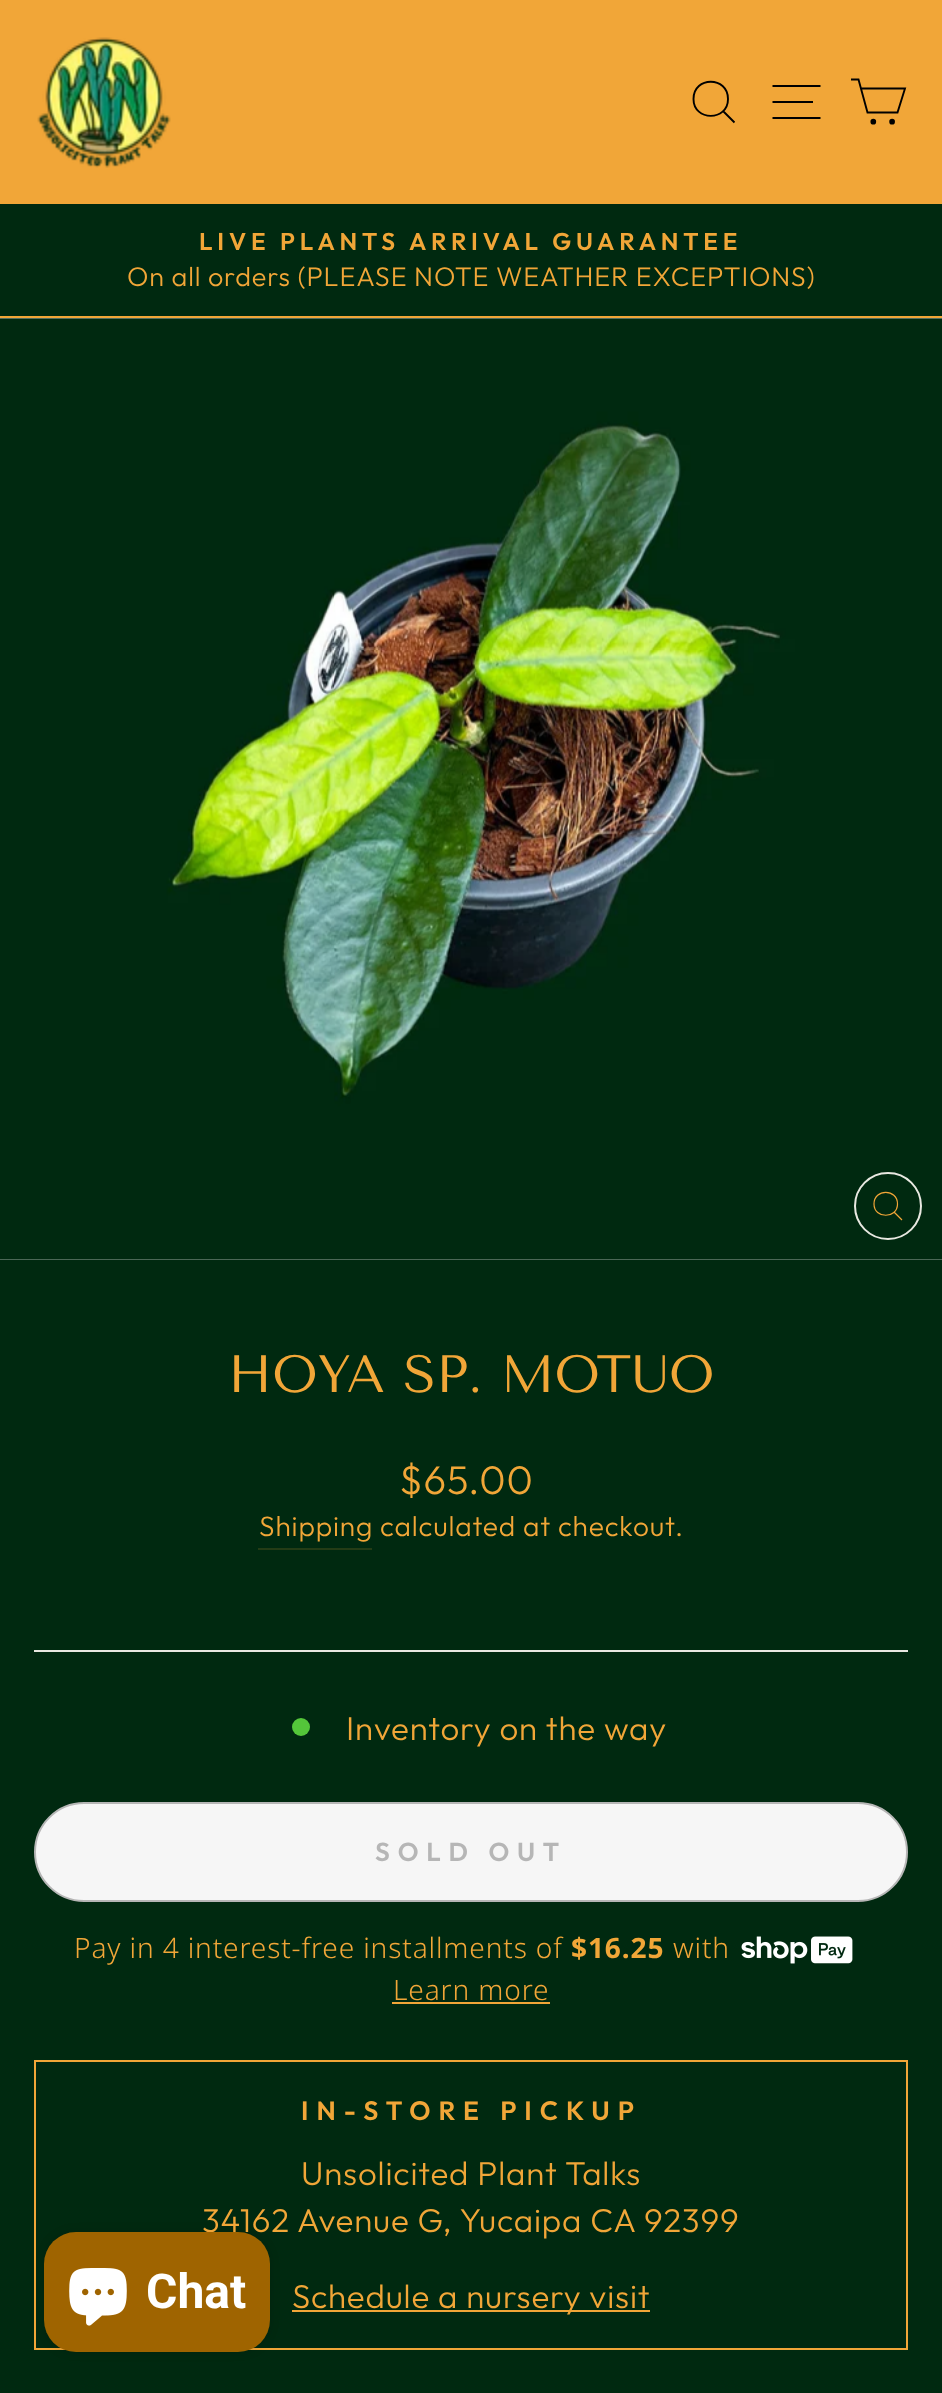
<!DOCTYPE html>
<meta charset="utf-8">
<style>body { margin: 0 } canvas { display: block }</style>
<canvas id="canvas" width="942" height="2393"></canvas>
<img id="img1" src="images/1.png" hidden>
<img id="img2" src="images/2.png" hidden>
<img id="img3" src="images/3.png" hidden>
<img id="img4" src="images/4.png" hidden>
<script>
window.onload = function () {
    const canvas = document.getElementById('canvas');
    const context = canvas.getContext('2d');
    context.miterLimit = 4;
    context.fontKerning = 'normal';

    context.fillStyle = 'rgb(0, 41, 16)';
    context.fillRect(0, 0, 942, 2393);
    context.fillStyle = 'rgb(241, 166, 56)';
    context.fillRect(0, 0, 942, 204);
    context.drawImage(document.getElementById('img1'), 37, 37, 134, 131);
    context.beginPath();
    context.moveTo(728, 99);
    context.bezierCurveTo(728, 121.5, 693.5, 121.5, 693.5, 99);
    context.bezierCurveTo(693.5, 76, 728, 76, 728, 99);
    context.closePath();
    context.moveTo(734.5, 122.5);
    context.lineTo(723.5, 111.5);
    context.strokeStyle = 'rgb(0, 0, 0)';
    context.lineWidth = 1.9;
    context.stroke();
    context.beginPath();
    context.moveTo(772.5, 86);
    context.lineTo(820.5, 86);
    context.moveTo(772.5, 102);
    context.lineTo(813, 102);
    context.moveTo(772.5, 118);
    context.lineTo(820.5, 118);
    context.stroke();
    context.beginPath();
    context.moveTo(861, 88.5);
    context.lineTo(905, 88.5);
    context.lineTo(897.5, 112.5);
    context.lineTo(867.5, 112.5);
    context.lineTo(858.5, 79.5);
    context.lineTo(851, 79.5);
    context.stroke();
    context.fillStyle = 'rgb(0, 0, 0)';
    context.beginPath();
    context.arc(873.3, 121.7, 1.9, 0, 2 * Math.PI);
    context.fill();
    context.stroke();
    context.beginPath();
    context.arc(892.1, 121.7, 1.9, 0, 2 * Math.PI);
    context.fill();
    context.stroke();
    context.fillStyle = 'rgb(241, 166, 56)';
    context.fillRect(0, 316, 942, 2);
    context.fillStyle = 'rgb(255, 255, 255)';
    context.fillRect(0, 318, 942, 942);
    context.drawImage(document.getElementById('img2'), 0, 318, 942, 942);
    context.beginPath();
    context.arc(888, 1206, 33, 0, 2 * Math.PI);
    context.strokeStyle = 'rgb(232, 232, 225)';
    context.lineWidth = 2;
    context.stroke();
    context.beginPath();
    context.moveTo(897.5, 1204);
    context.bezierCurveTo(897.5, 1219, 874, 1219, 874, 1204);
    context.bezierCurveTo(874, 1188.5, 897.5, 1188.5, 897.5, 1204);
    context.closePath();
    context.moveTo(902, 1220);
    context.lineTo(894, 1212);
    context.strokeStyle = 'rgb(241, 166, 56)';
    context.lineWidth = 1.2;
    context.stroke();
    context.fillStyle = 'rgb(36, 60, 22)';
    context.fillRect(258, 1548, 114, 2);
    context.fillStyle = 'rgb(232, 232, 225)';
    context.fillRect(34, 1650, 874, 2);
    context.fillStyle = 'rgb(84, 198, 58)';
    context.beginPath();
    context.arc(301, 1727, 9, 0, 2 * Math.PI);
    context.fill();
    context.fillStyle = 'rgb(246, 246, 246)';
    context.beginPath();
    context.roundRect(35, 1803, 872, 98, 49);
    context.fill();
    context.strokeStyle = 'rgb(182, 182, 182)';
    context.lineWidth = 2;
    context.stroke();
    context.drawImage(document.getElementById('img3'), 741, 1936, 112, 28);
    context.fillStyle = 'rgb(241, 166, 56)';
    context.fillRect(392, 2002, 158, 2);
    context.strokeStyle = 'rgb(241, 166, 56)';
    context.strokeRect(35, 2061, 872, 288);
    context.fillRect(292, 2310, 358, 2);
    context.fillStyle = 'rgba(0, 0, 0, 0.15)';
    context.filter = 'blur(5px)';
    context.beginPath();
    context.roundRect(44, 2232, 226, 120, 32);
    context.fill();
    context.filter = 'none';
    context.letterSpacing = '4.85px';
    context.font = '600 24.3px Outfit';
    context.fillStyle = 'rgb(241, 166, 56)';
    context.fillText('LIVE PLANTS ARRIVAL GUARANTEE', 199, 250);
    context.letterSpacing = '0.85px';
    context.font = '300 27px Outfit';
    context.fillText('On all orders (PLEASE NOTE WEATHER EXCEPTIONS)', 127, 286);
    context.letterSpacing = '0px';
    context.font = '52.5px Tenor Sans';
    context.fillText('HOYA SP. MOTUO', 228, 1392);
    context.letterSpacing = '0.85px';
    context.font = '300 40px Outfit';
    context.fillText('$65.00', 399, 1494);
    context.font = '300 28.1px Outfit';
    context.fillText('Shipping', 259, 1536);
    context.fillText('calculated at checkout.', 380, 1536);
    context.font = '300 33.1px Outfit';
    context.fillText('Inventory on the way', 346, 1740);
    context.letterSpacing = '7.75px';
    context.font = '600 26px Outfit';
    context.fillStyle = 'rgb(182, 182, 182)';
    context.fillText('SOLD OUT', 375, 1861);
    context.letterSpacing = '0.85px';
    context.font = '300 28.1px Noto Sans';
    context.fillStyle = 'rgb(241, 166, 56)';
    context.fillText('Pay in 4 interest-free installments of', 74, 1958);
    context.font = 'bold 28.1px Noto Sans';
    context.fillText('$16.25', 571, 1958);
    context.font = '300 28.1px Noto Sans';
    context.fillText('with', 673, 1958);
    context.fillText('Learn more', 393, 2000);
    context.letterSpacing = '8px';
    context.font = '600 26.5px Outfit';
    context.fillText('IN-STORE PICKUP', 301, 2120);
    context.letterSpacing = '0.85px';
    context.font = '300 33.1px Outfit';
    context.fillText('Unsolicited Plant Talks', 301, 2185);
    context.fillText('34162 Avenue G, Yucaipa CA 92399', 202, 2232);
    context.fillText('Schedule a nursery visit', 292, 2308);
    context.fillStyle = 'rgb(159, 100, 0)';
    context.beginPath();
    context.roundRect(44, 2232, 226, 120, 32);
    context.fill();
    context.drawImage(document.getElementById('img4'), 69, 2268, 58, 58);
    context.letterSpacing = '0px';
    context.font = 'bold 48px Roboto';
    context.fillStyle = 'rgb(255, 255, 255)';
    context.fillText('Chat', 146, 2308);
};
</script>
